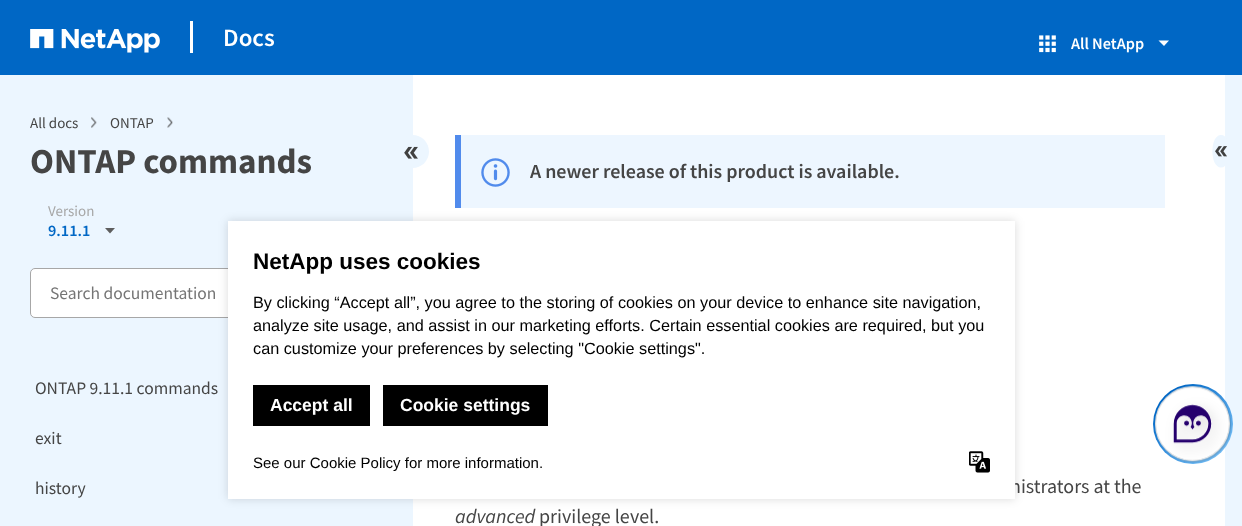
<!DOCTYPE html>
<meta charset="utf-8">
<style>body { margin: 0 } canvas { display: block }</style>
<canvas id="canvas" width="1242" height="526"></canvas>
<img id="img1" src="images/1.png" hidden>
<img id="img2" src="images/2.png" hidden>
<img id="img3" src="images/3.png" hidden>
<img id="img4" src="images/4.png" hidden>
<img id="img5" src="images/5.png" hidden>
<img id="img6" src="images/6.png" hidden>
<img id="img7" src="images/7.png" hidden>
<img id="img8" src="images/8.png" hidden>
<img id="img9" src="images/9.png" hidden>
<script>
window.onload = function () {
    const canvas = document.getElementById('canvas');
    const context = canvas.getContext('2d');
    context.miterLimit = 4;
    context.fontKerning = 'normal';
    let gradient;

    context.fillStyle = 'rgb(255, 255, 255)';
    context.fillRect(0, 0, 1242, 526);
    context.fillStyle = 'rgb(0, 103, 197)';
    context.fillRect(0, 0, 1242, 75);
    context.drawImage(document.getElementById('img1'), 30, 29, 130, 24);
    context.fillStyle = 'rgb(255, 255, 255)';
    context.fillRect(190, 21, 3, 32);
    context.drawImage(document.getElementById('img2'), 1039, 35, 17, 18);
    context.fillStyle = 'rgb(253, 253, 253)';
    context.beginPath();
    context.moveTo(1164, 46);
    context.lineTo(1158.5, 40.5);
    context.lineTo(1169, 40.5);
    context.closePath();
    context.fill();
    context.fillStyle = 'rgb(236, 246, 255)';
    context.fillRect(0, 75, 413, 451);
    context.drawImage(document.getElementById('img3'), 91, 117, 6, 11);
    context.drawImage(document.getElementById('img4'), 167, 117, 6, 11);
    context.beginPath();
    context.arc(412.5, 151.5, 16.5, 0, 2 * Math.PI);
    context.fill();
    context.drawImage(document.getElementById('img5'), 404, 146, 14, 13);
    context.fillStyle = 'rgb(94, 94, 94)';
    context.beginPath();
    context.moveTo(110, 233.5);
    context.lineTo(105, 228);
    context.lineTo(115, 228);
    context.closePath();
    context.fill();
    context.fillStyle = 'rgb(255, 255, 255)';
    context.beginPath();
    context.roundRect(30.5, 268.5, 352, 49, 4.5);
    context.fill();
    context.strokeStyle = 'rgb(167, 167, 167)';
    context.stroke();
    context.fillStyle = 'rgb(237, 246, 255)';
    context.fillRect(461, 135, 704, 73);
    context.fillStyle = 'rgb(81, 139, 236)';
    context.fillRect(455, 135, 6, 73);
    context.drawImage(document.getElementById('img6'), 481, 158, 29, 29);
    context.fillStyle = 'rgb(236, 246, 255)';
    context.fillRect(1225, 75, 17, 451);
    context.beginPath();
    context.moveTo(1221, 167.5);
    context.bezierCurveTo(1209.5, 167.5, 1209.5, 135, 1221, 135);
    context.bezierCurveTo(1233, 135, 1233, 167.5, 1221, 167.5);
    context.closePath();
    context.fill();
    context.drawImage(document.getElementById('img7'), 1215, 146, 12, 11);
    gradient = context.createLinearGradient(1153, 384, 1233, 464);
    gradient.addColorStop(0.18, 'rgb(0, 103, 197)');
    gradient.addColorStop(0.89, 'rgb(122, 195, 250)');
    context.fillStyle = gradient;
    context.beginPath();
    context.arc(1193, 424, 40, 0, 2 * Math.PI);
    context.fill();
    context.drawImage(document.getElementById('img8'), 1155, 386, 77, 77);
    context.fillStyle = 'rgba(0, 0, 0, 0.15)';
    context.filter = 'blur(5px)';
    context.beginPath();
    context.rect(228, 221, 787, 278);
    context.fill();
    context.filter = 'none';
    context.font = '600 25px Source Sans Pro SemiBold';
    context.fillStyle = 'rgb(255, 255, 255)';
    context.fillText('Docs', 223, 46);
    context.font = '600 16.25px Source Sans Pro SemiBold';
    context.fillText('All NetApp', 1071, 49);
    context.font = '15px Source Sans Pro';
    context.fillStyle = 'rgb(69, 69, 69)';
    context.fillText('All docs', 30, 128);
    context.fillText('ONTAP', 110, 128);
    context.font = 'bold 35px Source Sans Pro';
    context.fillText('ONTAP commands', 30, 173);
    context.font = '15px Source Sans Pro';
    context.fillStyle = 'rgb(167, 167, 167)';
    context.fillText('Version', 48, 216);
    context.font = '600 16.25px Source Sans Pro SemiBold';
    context.fillStyle = 'rgb(0, 103, 197)';
    context.fillText('9.11.1', 48, 236);
    context.font = '17.5px Source Sans Pro';
    context.fillStyle = 'rgb(117, 117, 117)';
    context.fillText('Search documentation', 50, 299);
    context.fillStyle = 'rgb(69, 69, 69)';
    context.fillText('ONTAP 9.11.1 commands', 35, 394);
    context.fillText('exit', 35, 444);
    context.fillText('history', 35, 494);
    context.font = '600 20px Source Sans Pro SemiBold';
    context.fillText('A newer release of this product is available.', 530, 178);
    context.font = '20px Source Sans Pro';
    context.fillText('nistrators at the', 1010, 493);
    context.font = 'italic 20px Source Sans Pro';
    context.fillText('advanced', 455, 523);
    context.font = '20px Source Sans Pro';
    context.fillText('privilege level.', 539, 523);
    context.fillStyle = 'rgb(255, 255, 255)';
    context.fillRect(228, 221, 787, 278);
    context.font = 'bold 22.5px Liberation Sans';
    context.fillStyle = 'rgb(0, 0, 0)';
    context.fillText('NetApp uses cookies', 253, 269);
    context.font = '16.25px Liberation Sans';
    context.fillText('By clicking “Accept all”, you agree to the storing of cookies on your device to enhance site navigation,', 253, 308);
    context.fillText('analyze site usage, and assist in our marketing efforts. Certain essential cookies are required, but you', 253, 331);
    context.fillText('can customize your preferences by selecting "Cookie settings".', 253, 354);
    context.fillRect(253, 385, 117, 41);
    context.font = 'bold 17.5px Liberation Sans';
    context.fillStyle = 'rgb(255, 255, 255)';
    context.fillText('Accept all', 270, 411);
    context.fillStyle = 'rgb(0, 0, 0)';
    context.fillRect(383, 385, 165, 41);
    context.fillStyle = 'rgb(255, 255, 255)';
    context.fillText('Cookie settings', 400, 411);
    context.font = '15px Liberation Sans';
    context.fillStyle = 'rgb(0, 0, 0)';
    context.fillText('See our Cookie Policy for more information.', 253, 468);
    context.drawImage(document.getElementById('img9'), 969, 451, 21, 22);
};
</script>
